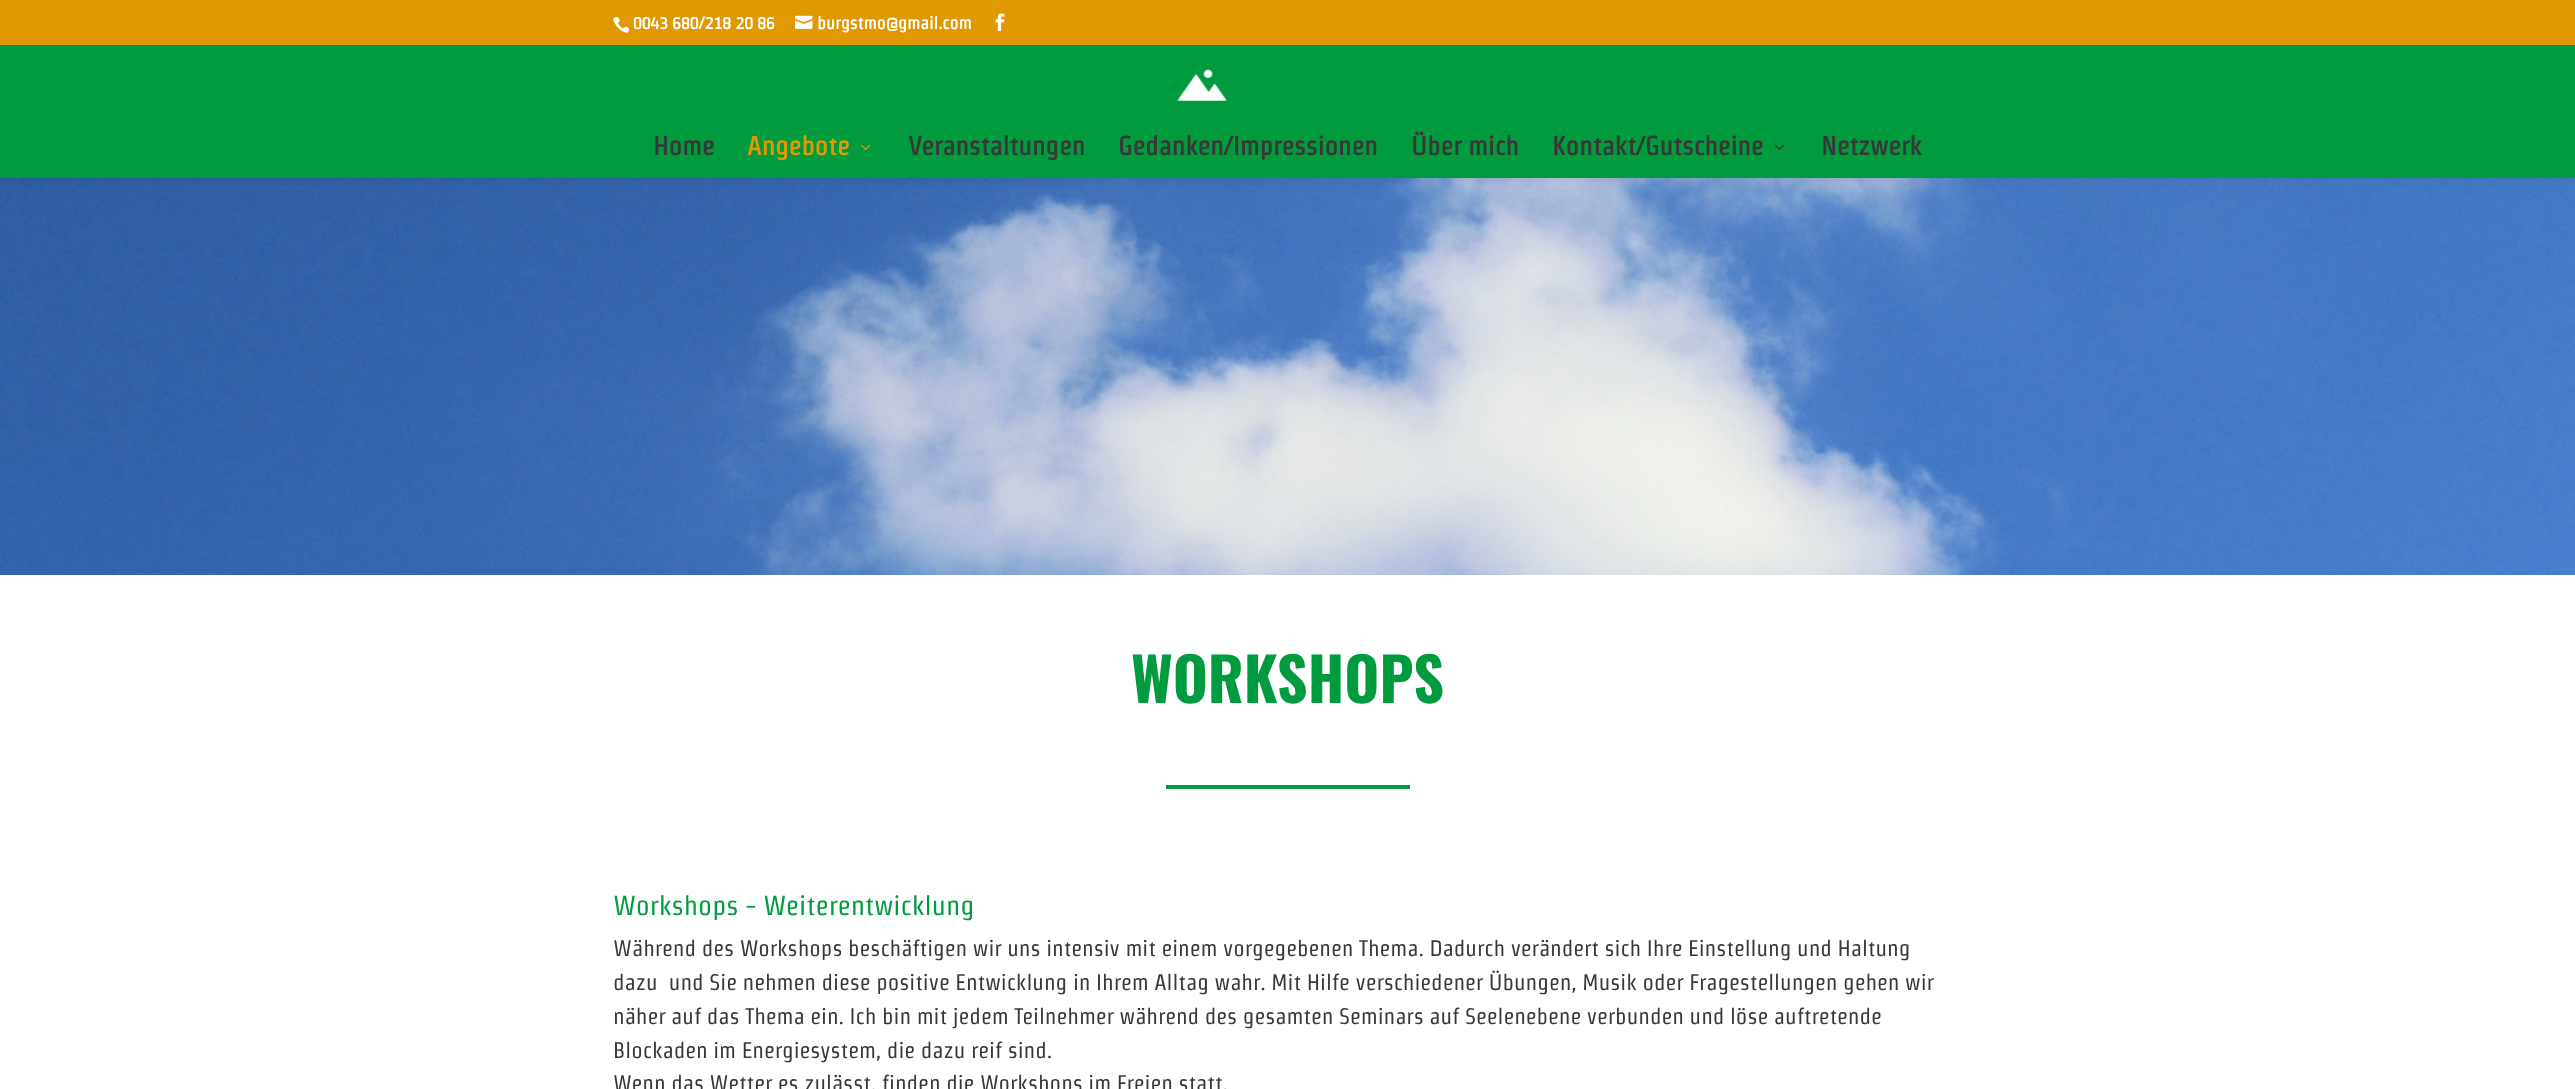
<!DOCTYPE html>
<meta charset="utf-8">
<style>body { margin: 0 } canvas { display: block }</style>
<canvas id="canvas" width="2575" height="1089"></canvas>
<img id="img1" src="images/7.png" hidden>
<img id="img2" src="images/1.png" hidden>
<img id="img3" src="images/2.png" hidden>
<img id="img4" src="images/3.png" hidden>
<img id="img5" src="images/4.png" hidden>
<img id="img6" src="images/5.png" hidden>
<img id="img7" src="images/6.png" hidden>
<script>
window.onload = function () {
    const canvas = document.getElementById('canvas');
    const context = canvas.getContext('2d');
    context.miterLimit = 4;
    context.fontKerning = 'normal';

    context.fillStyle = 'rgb(255, 255, 255)';
    context.fillRect(0, 0, 2575, 1089);
    context.drawImage(document.getElementById('img1'), 0, 178, 2575, 397);
    context.fillStyle = 'rgba(0, 0, 0, 0.1)';
    context.filter = 'blur(4.5px)';
    context.beginPath();
    context.rect(0, 45, 2575, 133);
    context.fill();
    context.filter = 'none';
    context.fillStyle = 'rgb(224, 153, 0)';
    context.fillRect(0, 0, 2575, 45);
    context.drawImage(document.getElementById('img2'), 613, 16, 17, 17);
    context.drawImage(document.getElementById('img3'), 795, 15, 18, 14);
    context.drawImage(document.getElementById('img4'), 995, 13, 10, 19);
    context.fillStyle = 'rgb(0, 155, 62)';
    context.fillRect(0, 45, 2575, 133);
    context.drawImage(document.getElementById('img5'), 1177, 69, 50, 32);
    context.drawImage(document.getElementById('img6'), 861, 144, 10, 6);
    context.drawImage(document.getElementById('img7'), 1774, 144, 10, 6);
    context.fillRect(1166, 785, 244, 4);
    context.font = 'bold 17.5px Strait';
    context.fillStyle = 'rgb(255, 255, 255)';
    context.fillText('0043 680/218 20 86', 633, 29);
    context.fillText('burgstmo@gmail.com', 817, 29);
    context.font = 'bold 26.25px Strait';
    context.fillStyle = 'rgb(56, 56, 56)';
    context.fillText('Home', 653, 155);
    context.fillStyle = 'rgb(224, 153, 0)';
    context.fillText('Angebote', 747, 155);
    context.fillStyle = 'rgb(56, 56, 56)';
    context.fillText('Veranstaltungen', 908, 155);
    context.fillText('Gedanken/Impressionen', 1118, 155);
    context.fillText('Über mich', 1411, 155);
    context.fillText('Kontakt/Gutscheine', 1552, 155);
    context.fillText('Netzwerk', 1821, 155);
    context.font = 'bold 60px Oswald';
    context.fillStyle = 'rgb(0, 155, 62)';
    context.fillText('WORKSHOPS', 1131, 703);
    context.font = '27.5px Strait';
    context.fillText('Workshops - Weiterentwicklung', 613, 915);
    context.font = '22.5px Strait';
    context.fillStyle = 'rgb(56, 56, 56)';
    context.fillText('Während des Workshops beschäftigen wir uns intensiv mit einem vorgegebenen Thema. Dadurch verändert sich Ihre Einstellung und Haltung', 613, 956);
    context.fillText('dazu  und Sie nehmen diese positive Entwicklung in Ihrem Alltag wahr. Mit Hilfe verschiedener Übungen, Musik oder Fragestellungen gehen wir', 613, 990);
    context.fillText('näher auf das Thema ein. Ich bin mit jedem Teilnehmer während des gesamten Seminars auf Seelenebene verbunden und löse auftretende', 613, 1024);
    context.fillText('Blockaden im Energiesystem, die dazu reif sind.', 613, 1058);
    context.fillText('Wenn das Wetter es zulässt, finden die Workshops im Freien statt.', 613, 1091);
};
</script>
